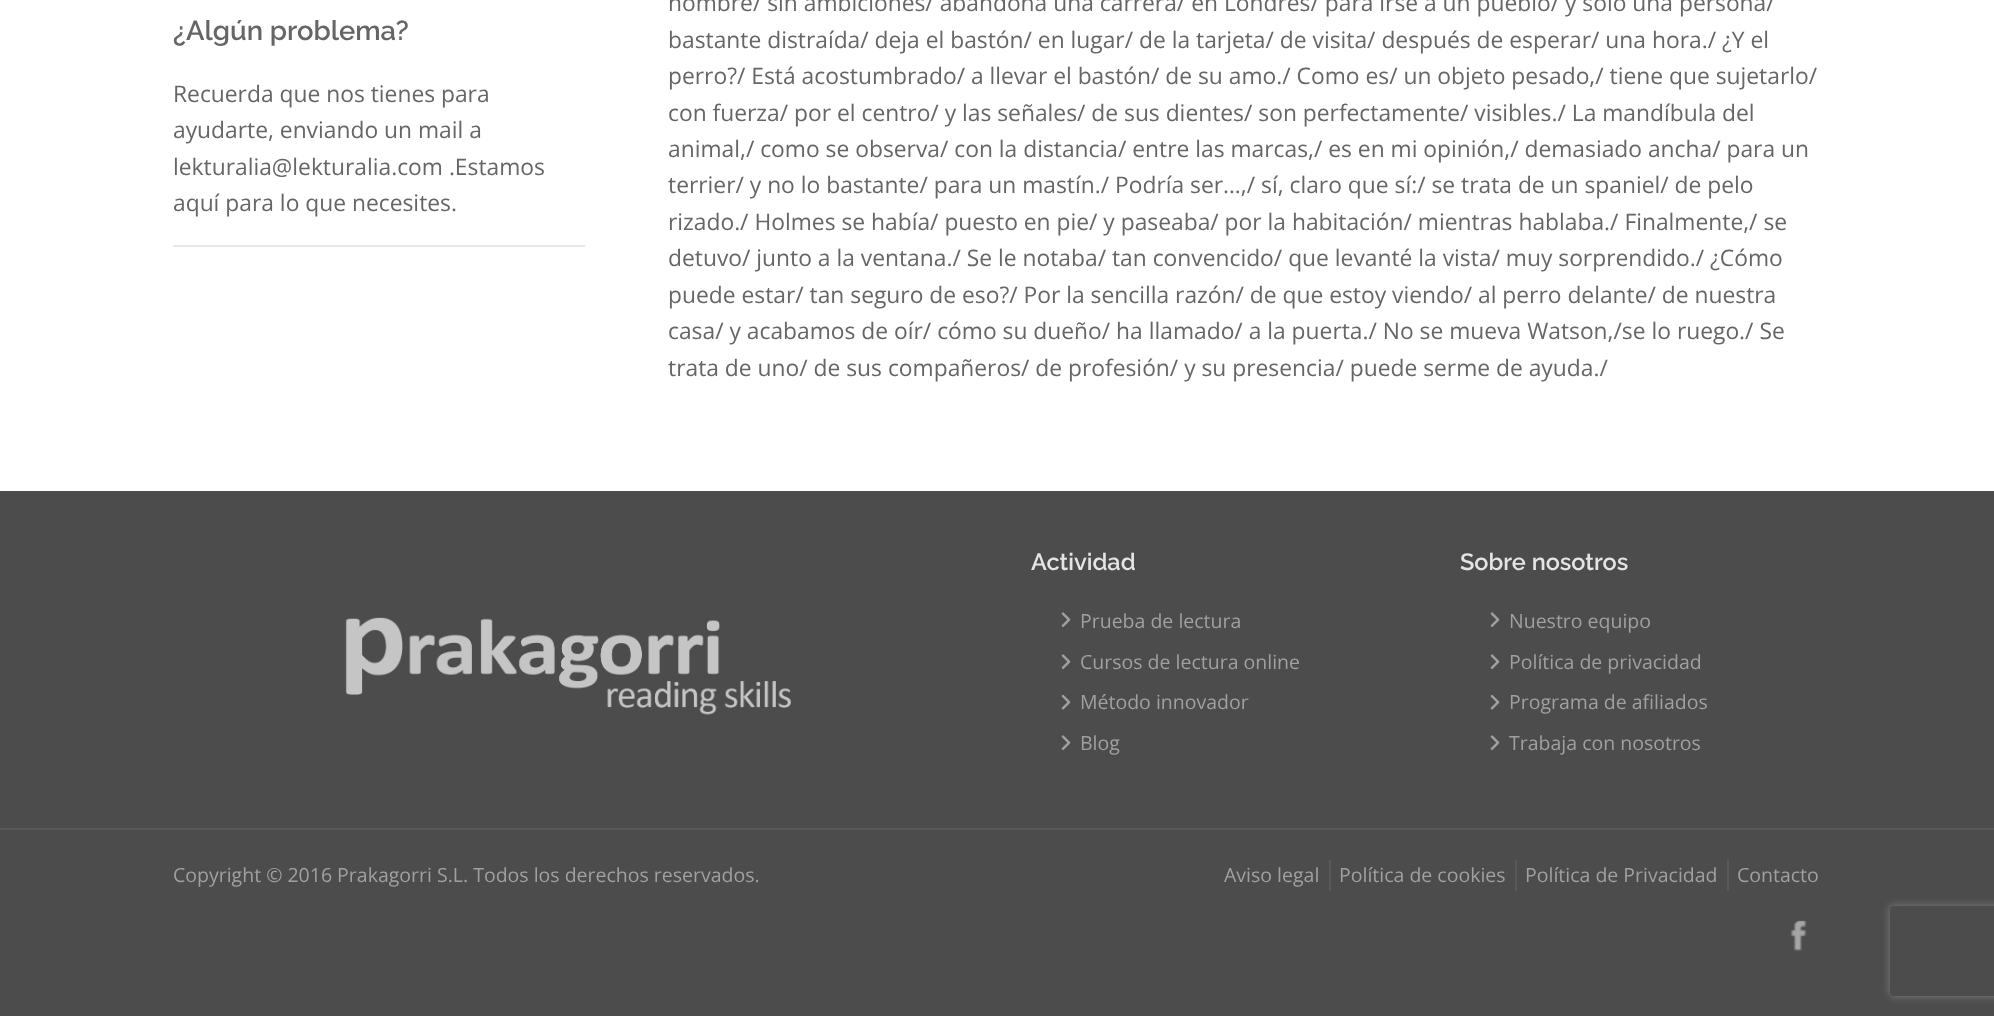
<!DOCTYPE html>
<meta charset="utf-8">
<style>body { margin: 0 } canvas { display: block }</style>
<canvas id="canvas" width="1994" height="1016"></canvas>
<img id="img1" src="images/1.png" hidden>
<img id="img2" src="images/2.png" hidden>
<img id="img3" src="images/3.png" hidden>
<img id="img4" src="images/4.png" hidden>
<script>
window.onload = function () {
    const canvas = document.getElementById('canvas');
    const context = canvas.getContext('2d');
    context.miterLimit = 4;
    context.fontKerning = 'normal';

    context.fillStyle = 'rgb(255, 255, 255)';
    context.fillRect(0, 0, 1994, 1016);
    context.fillStyle = 'rgb(232, 232, 232)';
    context.fillRect(173, 245, 412, 2);
    context.fillStyle = 'rgb(76, 76, 76)';
    context.fillRect(0, 491, 1994, 525);
    context.drawImage(document.getElementById('img1'), 345, 617, 446, 98);
    context.drawImage(document.getElementById('img2'), 1061, 612, 10, 15);
    context.drawImage(document.getElementById('img2'), 1061, 654, 10, 15);
    context.drawImage(document.getElementById('img3'), 1061, 695, 10, 15);
    context.drawImage(document.getElementById('img2'), 1061, 735, 10, 15);
    context.drawImage(document.getElementById('img2'), 1490, 612, 10, 15);
    context.drawImage(document.getElementById('img2'), 1490, 654, 10, 15);
    context.drawImage(document.getElementById('img3'), 1490, 695, 10, 15);
    context.drawImage(document.getElementById('img2'), 1490, 735, 10, 15);
    context.fillStyle = 'rgb(89, 89, 89)';
    context.fillRect(0, 828, 1994, 2);
    context.fillRect(1329, 860, 2, 31);
    context.fillRect(1515, 860, 2, 31);
    context.fillRect(1727, 860, 2, 31);
    context.drawImage(document.getElementById('img4'), 1790, 920, 17, 32);
    context.save();
    context.beginPath();
    context.moveTo(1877, 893);
    context.lineTo(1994, 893);
    context.lineTo(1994, 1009);
    context.lineTo(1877, 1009);
    context.closePath();
    context.moveTo(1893, 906);
    context.lineTo(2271, 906);
    context.bezierCurveTo(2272.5, 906, 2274, 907.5, 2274, 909);
    context.lineTo(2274, 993);
    context.bezierCurveTo(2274, 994.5, 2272.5, 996, 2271, 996);
    context.lineTo(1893, 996);
    context.bezierCurveTo(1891.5, 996, 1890, 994.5, 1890, 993);
    context.lineTo(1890, 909);
    context.bezierCurveTo(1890, 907.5, 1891.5, 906, 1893, 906);
    context.closePath();
    context.clip('evenodd');
    context.fillStyle = 'rgb(128, 128, 128)';
    context.filter = 'blur(4px)';
    context.beginPath();
    context.roundRect(1890, 906, 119, 90, 3);
    context.fill();
    context.filter = 'none';
    context.restore();
    context.font = '600 27.4px Raleway';
    context.fillStyle = 'rgb(102, 102, 102)';
    context.fillText('¿Algún problema?', 173, 40);
    context.font = '22.82px Open Sans';
    context.fillText('Recuerda que nos tienes para', 173, 102);
    context.fillText('ayudarte, enviando un mail a', 173, 138);
    context.fillText('lekturalia@lekturalia.com .Estamos', 173, 175);
    context.fillText('aquí para lo que necesites.', 173, 211);
    context.fillText('hombre/ sin ambiciones/ abandona una carrera/ en Londres/ para irse a un pueblo/ y sólo una persona/', 668, 11);
    context.fillText('bastante distraída/ deja el bastón/ en lugar/ de la tarjeta/ de visita/ después de esperar/ una hora./ ¿Y el', 668, 48);
    context.fillText('perro?/ Está acostumbrado/ a llevar el bastón/ de su amo./ Como es/ un objeto pesado,/ tiene que sujetarlo/', 668, 84);
    context.fillText('con fuerza/ por el centro/ y las señales/ de sus dientes/ son perfectamente/ visibles./ La mandíbula del', 668, 121);
    context.fillText('animal,/ como se observa/ con la distancia/ entre las marcas,/ es en mi opinión,/ demasiado ancha/ para un', 668, 157);
    context.fillText('terrier/ y no lo bastante/ para un mastín./ Podría ser…,/ sí, claro que sí:/ se trata de un spaniel/ de pelo', 668, 193);
    context.fillText('rizado./ Holmes se había/ puesto en pie/ y paseaba/ por la habitación/ mientras hablaba./ Finalmente,/ se', 668, 230);
    context.fillText('detuvo/ junto a la ventana./ Se le notaba/ tan convencido/ que levanté la vista/ muy sorprendido./ ¿Cómo', 668, 266);
    context.fillText('puede estar/ tan seguro de eso?/ Por la sencilla razón/ de que estoy viendo/ al perro delante/ de nuestra', 668, 303);
    context.fillText('casa/ y acabamos de oír/ cómo su dueño/ ha llamado/ a la puerta./ No se mueva Watson,/se lo ruego./ Se', 668, 339);
    context.fillText('trata de uno/ de sus compañeros/ de profesión/ y su presencia/ puede serme de ayuda./', 668, 376);
    context.font = '600 23.5px Raleway';
    context.fillStyle = 'rgb(229, 229, 229)';
    context.fillText('Actividad', 1031, 570);
    context.font = '19.5px Open Sans';
    context.fillStyle = 'rgb(160, 160, 160)';
    context.fillText('Prueba de lectura', 1080, 628);
    context.fillText('Cursos de lectura online', 1080, 669);
    context.fillText('Método innovador', 1080, 709);
    context.fillText('Blog', 1080, 750);
    context.font = '600 23.5px Raleway';
    context.fillStyle = 'rgb(229, 229, 229)';
    context.fillText('Sobre nosotros', 1460, 570);
    context.font = '19.5px Open Sans';
    context.fillStyle = 'rgb(160, 160, 160)';
    context.fillText('Nuestro equipo', 1509, 628);
    context.fillText('Política de privacidad', 1509, 669);
    context.fillText('Programa de afiliados', 1509, 709);
    context.fillText('Trabaja con nosotros', 1509, 750);
    context.fillText('Copyright © 2016 Prakagorri S.L. Todos los derechos reservados.', 173, 882);
    context.fillText('Aviso legal', 1224, 882);
    context.fillText('Política de cookies', 1339, 882);
    context.fillText('Política de Privacidad', 1525, 882);
    context.fillText('Contacto', 1737, 882);
};
</script>
